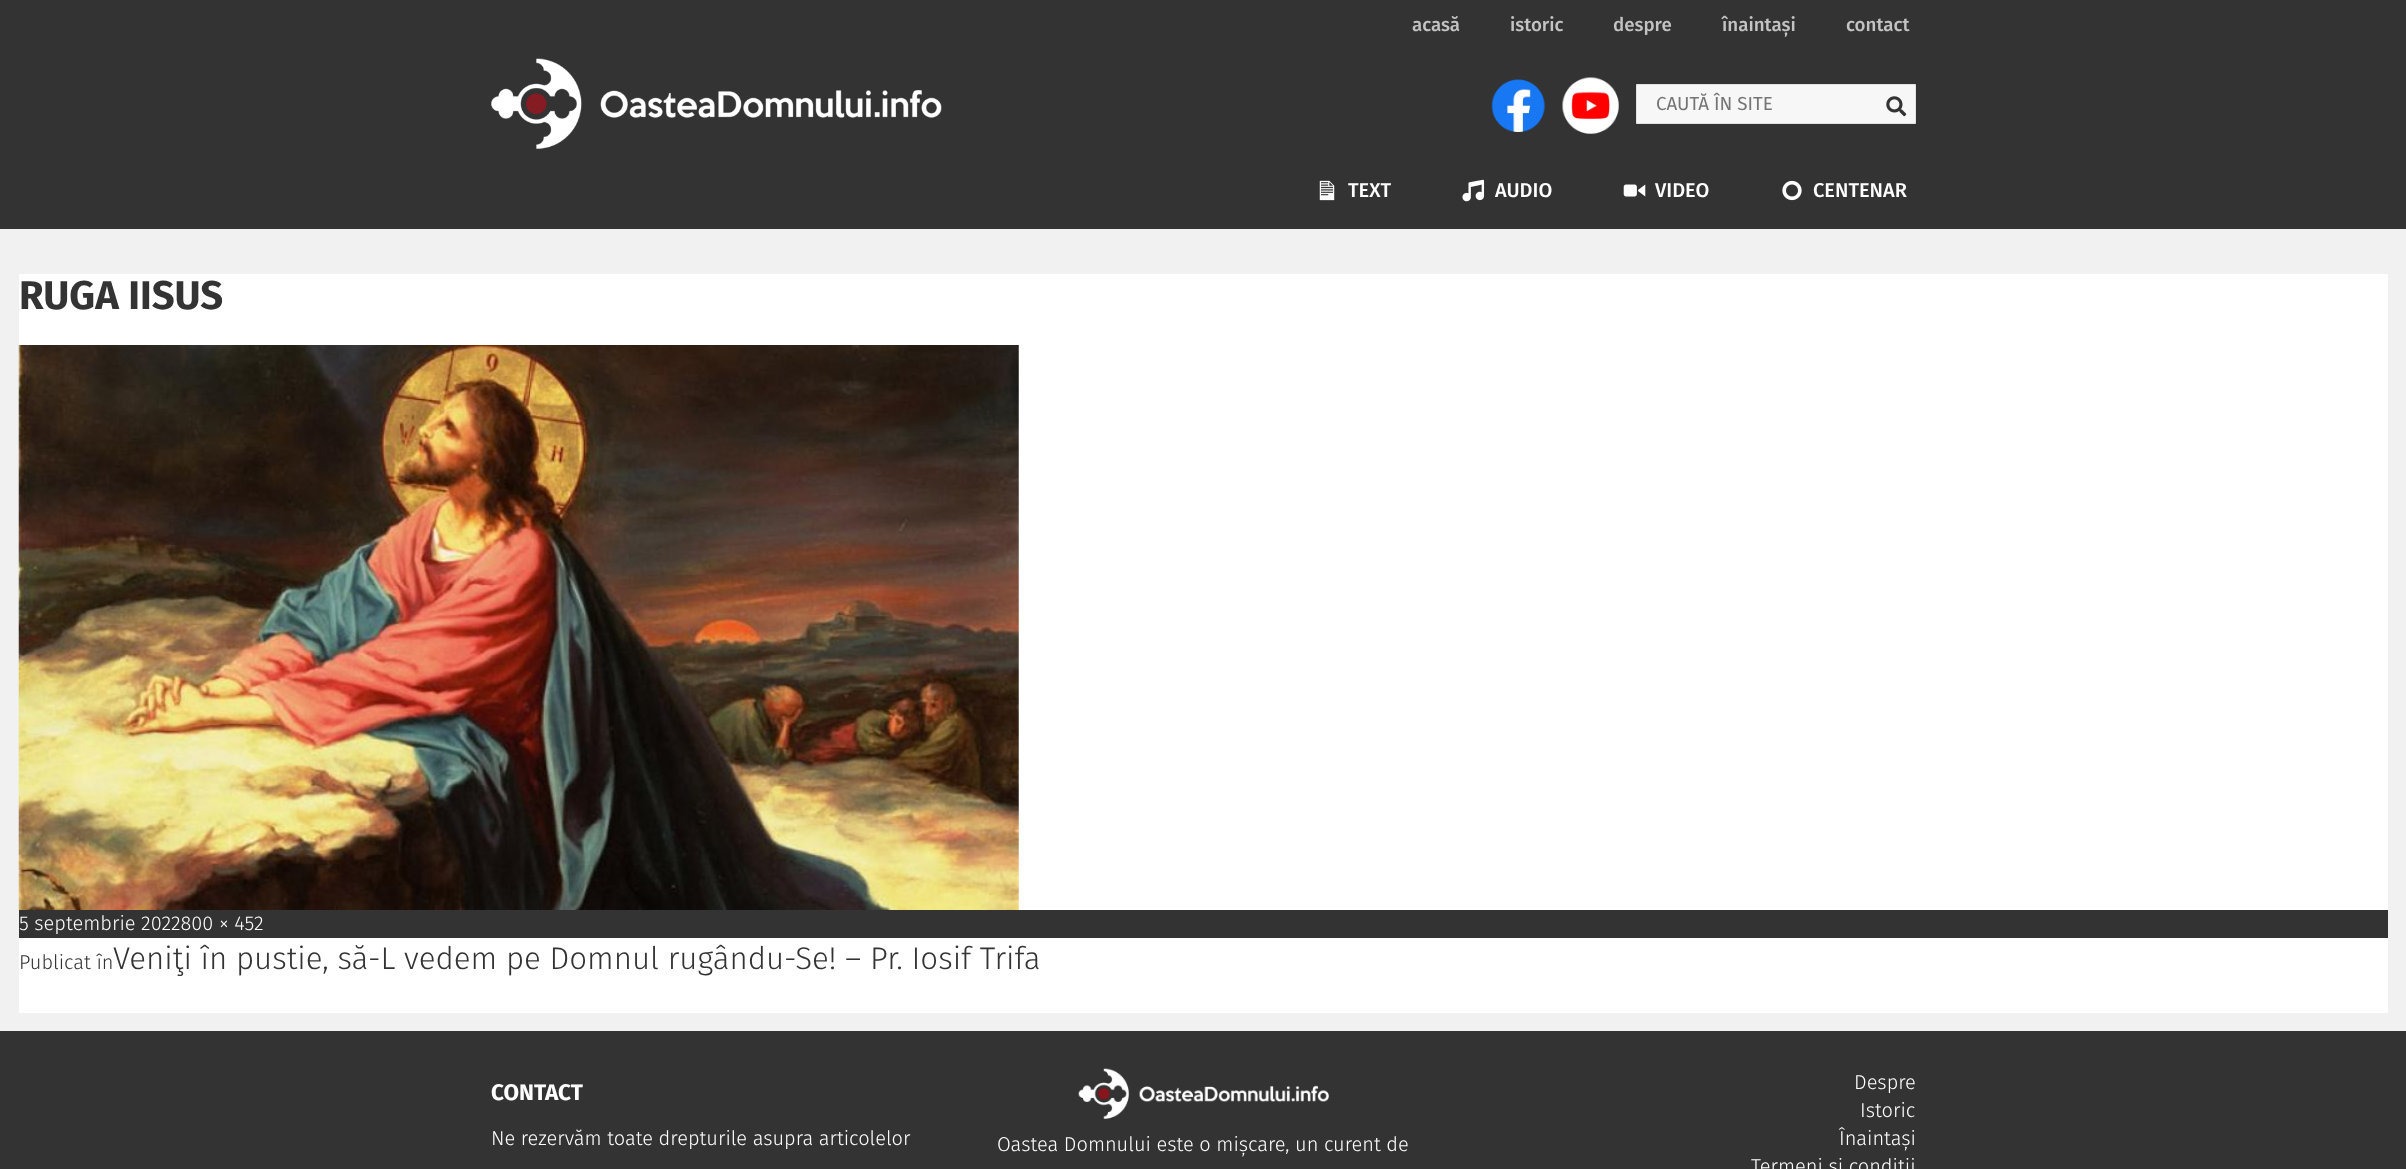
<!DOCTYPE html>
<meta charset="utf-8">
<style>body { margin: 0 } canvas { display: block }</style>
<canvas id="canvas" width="2406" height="1169"></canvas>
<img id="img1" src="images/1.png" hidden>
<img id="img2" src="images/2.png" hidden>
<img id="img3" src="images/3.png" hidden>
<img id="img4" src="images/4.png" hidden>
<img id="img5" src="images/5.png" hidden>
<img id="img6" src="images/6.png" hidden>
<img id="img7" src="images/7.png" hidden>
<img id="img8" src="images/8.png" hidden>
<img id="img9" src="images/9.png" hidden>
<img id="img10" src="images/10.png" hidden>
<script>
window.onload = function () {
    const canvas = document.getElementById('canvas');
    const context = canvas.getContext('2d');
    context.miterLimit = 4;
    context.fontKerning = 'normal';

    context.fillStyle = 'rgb(241, 241, 241)';
    context.fillRect(0, 0, 2406, 1169);
    context.fillStyle = 'rgb(51, 51, 51)';
    context.fillRect(0, 0, 2406, 229);
    context.drawImage(document.getElementById('img1'), 491, 58, 451, 91);
    context.drawImage(document.getElementById('img2'), 1491, 79, 54, 53);
    context.drawImage(document.getElementById('img3'), 1562, 77, 57, 57);
    context.fillStyle = 'rgb(247, 247, 247)';
    context.beginPath();
    context.rect(1636.5, 84.5, 279, 39);
    context.fill();
    context.strokeStyle = 'rgb(227, 227, 227)';
    context.stroke();
    context.drawImage(document.getElementById('img4'), 1886, 96, 21, 21);
    context.drawImage(document.getElementById('img5'), 1319, 180, 16, 21);
    context.drawImage(document.getElementById('img6'), 1462, 179, 23, 23);
    context.drawImage(document.getElementById('img7'), 1623, 184, 23, 13);
    context.drawImage(document.getElementById('img8'), 1782, 180, 20, 21);
    context.fillStyle = 'rgb(255, 255, 255)';
    context.fillRect(19, 274, 2369, 739);
    context.drawImage(document.getElementById('img9'), 18, 345, 1001, 565);
    context.fillStyle = 'rgb(51, 51, 51)';
    context.fillRect(19, 910, 2369, 28);
    context.fillRect(0, 1031, 2406, 138);
    context.drawImage(document.getElementById('img10'), 1078, 1068, 251, 51);
    context.font = '500 18.75px Fira Sans';
    context.fillStyle = 'rgb(195, 195, 195)';
    context.fillText('acasă', 1412, 31);
    context.fillText('istoric', 1510, 31);
    context.fillText('despre', 1613, 31);
    context.fillText('înaintași', 1722, 31);
    context.fillText('contact', 1846, 31);
    context.font = '18.75px Fira Sans';
    context.fillStyle = 'rgb(117, 117, 117)';
    context.fillText('CAUTĂ ÎN SITE', 1656, 110);
    context.font = '500 20px Fira Sans';
    context.fillStyle = 'rgb(255, 255, 255)';
    context.fillText('TEXT', 1348, 197);
    context.fillText('AUDIO', 1495, 197);
    context.fillText('VIDEO', 1655, 197);
    context.fillText('CENTENAR', 1813, 197);
    context.font = 'bold 40px Fira Sans';
    context.fillStyle = 'rgb(51, 51, 51)';
    context.fillText('RUGA IISUS', 19, 309);
    context.font = '300 20px Fira Sans';
    context.fillStyle = 'rgb(255, 255, 255)';
    context.fillText('5 septembrie 2022800 × 452', 19, 930);
    context.fillStyle = 'rgb(51, 51, 51)';
    context.fillText('Publicat în', 19, 969);
    context.font = '300 31.25px Fira Sans';
    context.fillText('Veniţi în pustie, să-L vedem pe Domnul rugându-Se! – Pr. Iosif Trifa', 113, 969);
    context.font = 'bold 22.5px Fira Sans';
    context.fillStyle = 'rgb(255, 255, 255)';
    context.fillText('CONTACT', 491, 1100);
    context.font = '300 20px Fira Sans';
    context.fillText('Ne rezervăm toate drepturile asupra articolelor', 491, 1145);
    context.fillText('Oastea Domnului este o mișcare, un curent de', 997, 1151);
    context.fillText('Despre', 1854, 1089);
    context.fillText('Istoric', 1860, 1117);
    context.fillText('Înaintași', 1839, 1145);
    context.fillText('Termeni și condiții', 1751, 1173);
};
</script>
